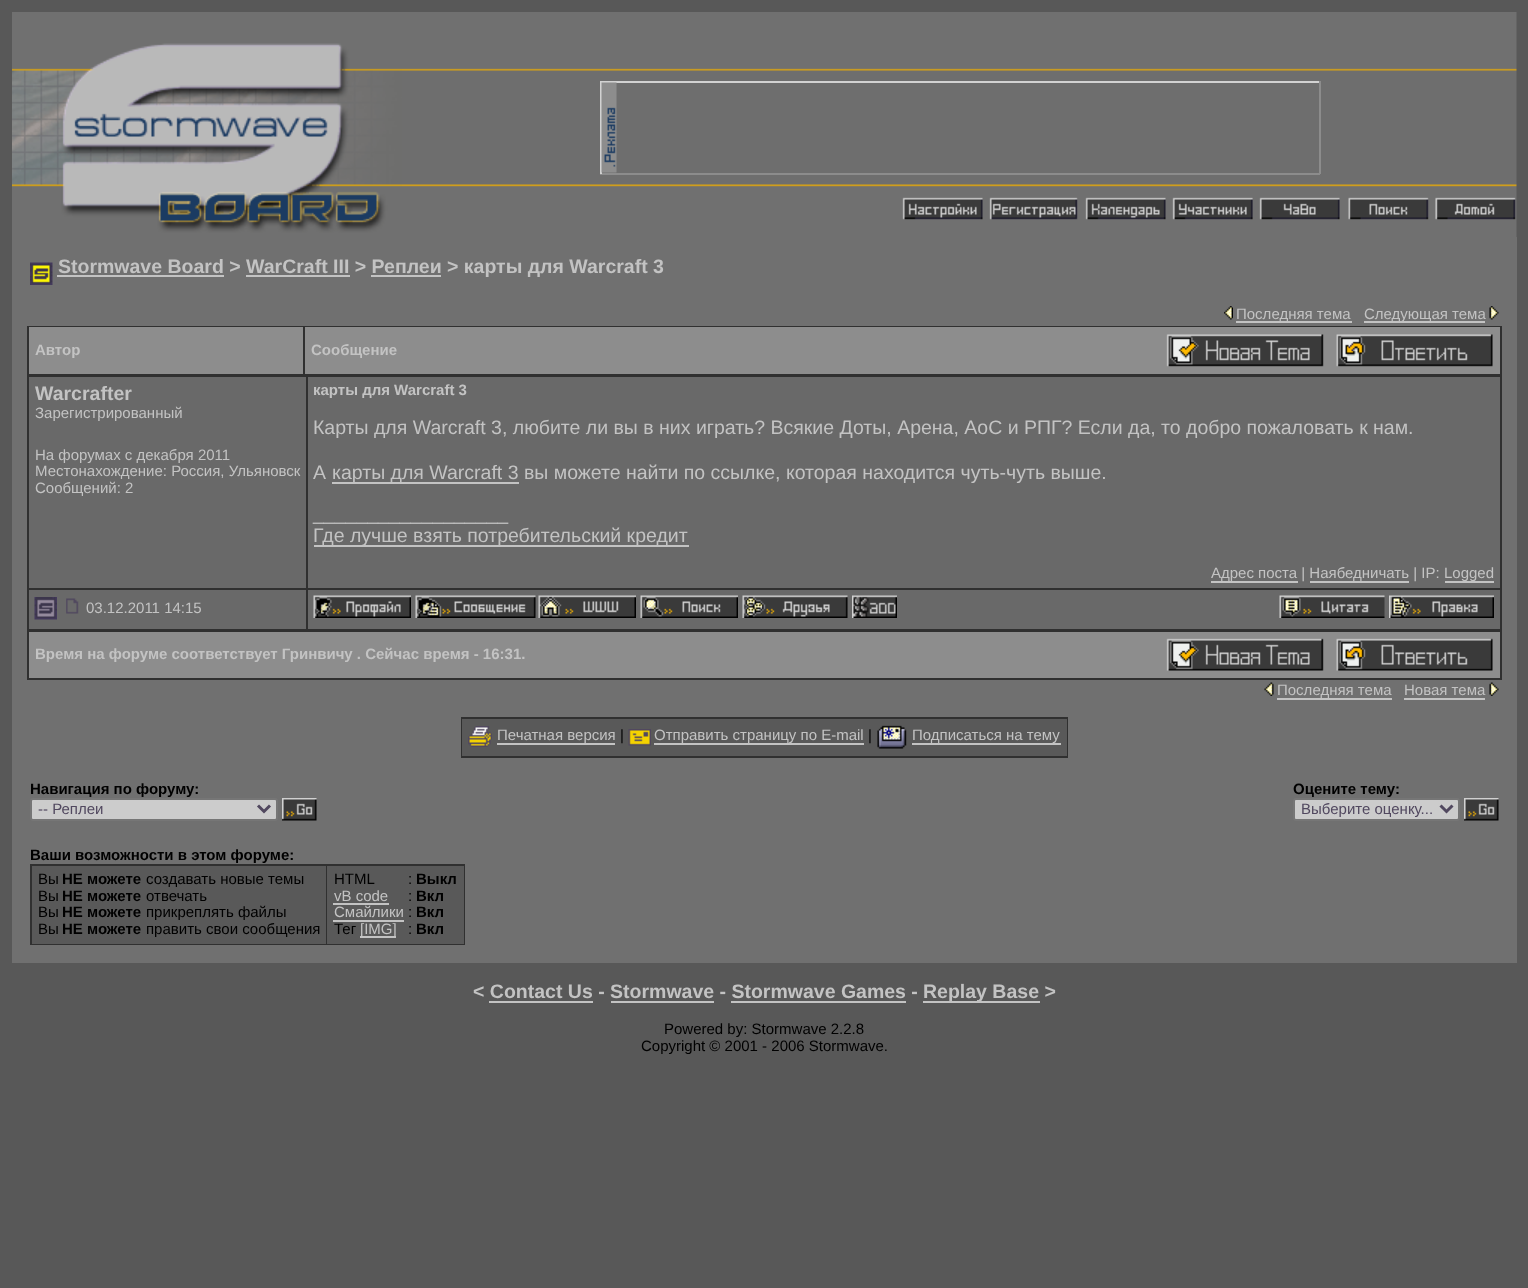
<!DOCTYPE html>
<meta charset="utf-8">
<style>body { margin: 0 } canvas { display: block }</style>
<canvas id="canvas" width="1528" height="1288"></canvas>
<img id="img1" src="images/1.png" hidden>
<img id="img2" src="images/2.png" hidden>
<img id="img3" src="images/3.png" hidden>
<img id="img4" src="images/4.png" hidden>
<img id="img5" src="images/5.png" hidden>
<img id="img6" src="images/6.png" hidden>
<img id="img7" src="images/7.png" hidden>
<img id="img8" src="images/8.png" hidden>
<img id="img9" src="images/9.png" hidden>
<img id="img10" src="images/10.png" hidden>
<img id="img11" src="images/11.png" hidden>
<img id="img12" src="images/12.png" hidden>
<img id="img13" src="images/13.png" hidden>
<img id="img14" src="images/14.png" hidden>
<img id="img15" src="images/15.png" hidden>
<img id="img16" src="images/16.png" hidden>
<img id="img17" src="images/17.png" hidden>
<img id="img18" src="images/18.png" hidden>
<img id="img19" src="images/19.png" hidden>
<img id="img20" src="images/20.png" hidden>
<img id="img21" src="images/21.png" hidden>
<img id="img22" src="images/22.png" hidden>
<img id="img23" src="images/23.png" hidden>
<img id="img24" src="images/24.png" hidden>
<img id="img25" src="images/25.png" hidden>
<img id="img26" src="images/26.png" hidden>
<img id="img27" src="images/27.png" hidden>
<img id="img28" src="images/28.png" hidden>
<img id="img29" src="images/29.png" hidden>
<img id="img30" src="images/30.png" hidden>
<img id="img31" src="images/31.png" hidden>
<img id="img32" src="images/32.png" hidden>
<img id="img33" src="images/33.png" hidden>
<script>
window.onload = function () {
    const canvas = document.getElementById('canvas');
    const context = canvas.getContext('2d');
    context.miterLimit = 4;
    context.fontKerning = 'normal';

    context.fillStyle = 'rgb(88, 88, 88)';
    context.fillRect(0, 0, 1528, 1288);
    context.drawImage(document.getElementById('img1'), 12, 12, 390, 225);
    context.drawImage(document.getElementById('img2'), 402, 12, 1115, 225);
    context.fillStyle = 'rgb(210, 210, 210)';
    context.fillRect(600, 81, 720, 2);
    context.fillStyle = 'rgb(140, 140, 140)';
    context.fillRect(1319, 81, 2, 93);
    context.fillRect(600, 173, 720, 2);
    context.fillStyle = 'rgb(210, 210, 210)';
    context.fillRect(600, 81, 2, 93);
    context.drawImage(document.getElementById('img3'), 601, 82, 16, 91);
    context.drawImage(document.getElementById('img4'), 902, 197, 81, 23);
    context.drawImage(document.getElementById('img5'), 989, 197, 89, 23);
    context.drawImage(document.getElementById('img6'), 1085, 197, 81, 23);
    context.drawImage(document.getElementById('img7'), 1172, 197, 81, 23);
    context.drawImage(document.getElementById('img8'), 1259, 197, 81, 23);
    context.drawImage(document.getElementById('img9'), 1348, 197, 81, 23);
    context.drawImage(document.getElementById('img10'), 1435, 197, 81, 23);
    context.fillStyle = 'rgb(112, 112, 112)';
    context.fillRect(12, 237, 1505, 726);
    context.drawImage(document.getElementById('img11'), 30, 262, 23, 23);
    context.fillStyle = 'rgb(195, 195, 195)';
    context.fillRect(57, 275, 167, 2);
    context.fillRect(246, 275, 104, 2);
    context.fillRect(371, 275, 70, 2);
    context.drawImage(document.getElementById('img12'), 1224, 306, 9, 14);
    context.fillRect(1236, 321, 116, 2);
    context.fillRect(1364, 321, 121, 2);
    context.drawImage(document.getElementById('img13'), 1489, 306, 10, 14);
    context.fillStyle = 'rgb(48, 48, 48)';
    context.fillRect(27, 326, 1475, 354);
    context.fillStyle = 'rgb(141, 141, 141)';
    context.fillRect(29, 327, 274, 47);
    context.fillRect(305, 327, 1195, 47);
    context.drawImage(document.getElementById('img14'), 1166, 334, 158, 33);
    context.drawImage(document.getElementById('img15'), 1336, 334, 157, 33);
    context.fillStyle = 'rgb(105, 105, 105)';
    context.fillRect(29, 377, 277, 211);
    context.fillRect(308, 377, 1192, 211);
    context.fillStyle = 'rgb(195, 195, 195)';
    context.fillRect(332, 482, 187, 2);
    context.fillRect(314, 545, 375, 2);
    context.fillRect(1211, 581, 87, 2);
    context.fillRect(1310, 581, 99, 2);
    context.fillRect(1445, 581, 49, 2);
    context.fillStyle = 'rgb(105, 105, 105)';
    context.fillRect(29, 590, 277, 39);
    context.drawImage(document.getElementById('img16'), 34, 597, 23, 23);
    context.drawImage(document.getElementById('img17'), 66, 598, 13, 16);
    context.fillRect(308, 590, 1192, 39);
    context.drawImage(document.getElementById('img18'), 313, 595, 98, 23);
    context.drawImage(document.getElementById('img19'), 415, 595, 121, 23);
    context.drawImage(document.getElementById('img20'), 538, 595, 98, 23);
    context.drawImage(document.getElementById('img21'), 640, 595, 98, 23);
    context.drawImage(document.getElementById('img22'), 742, 595, 106, 23);
    context.drawImage(document.getElementById('img23'), 852, 595, 45, 23);
    context.drawImage(document.getElementById('img24'), 1279, 595, 106, 23);
    context.drawImage(document.getElementById('img25'), 1389, 595, 105, 23);
    context.fillStyle = 'rgb(141, 141, 141)';
    context.fillRect(29, 632, 1471, 46);
    context.drawImage(document.getElementById('img26'), 1166, 638, 158, 33);
    context.drawImage(document.getElementById('img27'), 1336, 638, 157, 33);
    context.drawImage(document.getElementById('img28'), 1264, 682, 10, 14);
    context.fillStyle = 'rgb(195, 195, 195)';
    context.fillRect(1277, 698, 115, 2);
    context.fillRect(1404, 698, 81, 2);
    context.drawImage(document.getElementById('img29'), 1489, 682, 10, 14);
    context.fillStyle = 'rgb(48, 48, 48)';
    context.fillRect(461, 717, 607, 41);
    context.fillStyle = 'rgb(89, 89, 89)';
    context.fillRect(462, 719, 605, 37);
    context.drawImage(document.getElementById('img30'), 468, 726, 24, 21);
    context.fillStyle = 'rgb(195, 195, 195)';
    context.fillRect(497, 743, 118, 2);
    context.drawImage(document.getElementById('img31'), 628, 729, 23, 17);
    context.fillRect(654, 743, 210, 2);
    context.drawImage(document.getElementById('img32'), 877, 725, 30, 24);
    context.fillRect(912, 743, 149, 2);
    context.fillStyle = 'rgb(204, 204, 204)';
    context.beginPath();
    context.roundRect(31, 799, 246, 21, 2);
    context.fill();
    context.strokeStyle = 'rgb(118, 118, 118)';
    context.lineWidth = 2;
    context.stroke();
    context.beginPath();
    context.moveTo(258, 805.5);
    context.lineTo(264, 811.5);
    context.lineTo(270, 805.5);
    context.strokeStyle = 'rgb(81, 72, 95)';
    context.lineWidth = 3;
    context.stroke();
    context.drawImage(document.getElementById('img33'), 282, 798, 35, 23);
    context.beginPath();
    context.roundRect(1294, 799, 165, 21, 2);
    context.fill();
    context.strokeStyle = 'rgb(118, 118, 118)';
    context.lineWidth = 2;
    context.stroke();
    context.beginPath();
    context.moveTo(1440.5, 805.5);
    context.lineTo(1446.5, 811.5);
    context.lineTo(1452.5, 805.5);
    context.strokeStyle = 'rgb(81, 72, 95)';
    context.lineWidth = 3;
    context.stroke();
    context.drawImage(document.getElementById('img33'), 1464, 798, 35, 23);
    context.fillStyle = 'rgb(48, 48, 48)';
    context.fillRect(30, 864, 435, 81);
    context.fillStyle = 'rgb(89, 89, 89)';
    context.fillRect(32, 866, 294, 78);
    context.fillRect(327, 866, 137, 78);
    context.fillStyle = 'rgb(195, 195, 195)';
    context.fillRect(333, 903, 56, 2);
    context.fillRect(333, 920, 71, 2);
    context.fillRect(360, 936, 36, 2);
    context.fillRect(489, 1001, 104, 2);
    context.fillRect(611, 1001, 103, 2);
    context.fillRect(731, 1001, 175, 2);
    context.fillRect(923, 1001, 117, 2);
    context.font = 'bold 19.5px Liberation Sans';
    context.fillText('Stormwave Board > WarCraft III > Реплеи > карты для Warcraft 3', 58, 273);
    context.font = '15px Liberation Sans';
    context.fillText('Последняя тема', 1236, 319);
    context.fillText('Следующая тема', 1364, 319);
    context.font = 'bold 15px Liberation Sans';
    context.fillText('Автор', 35, 355);
    context.fillText('Сообщение', 311, 355);
    context.font = 'bold 19.5px Liberation Sans';
    context.fillText('Warcrafter', 35, 400);
    context.font = '15px Liberation Sans';
    context.fillText('Зарегистрированный', 35, 418);
    context.fillText('На форумах с декабря 2011', 35, 460);
    context.fillText('Местонахождение: Россия, Ульяновск', 35, 476);
    context.fillText('Сообщений: 2', 35, 493);
    context.font = 'bold 15px Liberation Sans';
    context.fillText('карты для Warcraft 3', 313, 395);
    context.font = '19.5px Liberation Sans';
    context.fillText('Карты для Warcraft 3, любите ли вы в них играть? Всякие Доты, Арена, АоС и РПГ? Если да, то добро пожаловать к нам.', 313, 434);
    context.fillText('А', 313, 479);
    context.fillText('карты для Warcraft 3 вы можете найти по ссылке, которая находится чуть-чуть выше.', 332, 479);
    context.fillText('__________________', 313, 520);
    context.fillText('Где лучше взять потребительский кредит', 313, 542);
    context.font = '15px Liberation Sans';
    context.fillText('Адрес поста | Наябедничать | IP:', 1211, 578);
    context.fillText('Logged', 1444, 578);
    context.fillText('03.12.2011 14:15', 86, 613);
    context.font = 'bold 15px Liberation Sans';
    context.fillText('Время на форуме соответствует Гринвичу . Сейчас время - 16:31.', 35, 659);
    context.font = '15px Liberation Sans';
    context.fillText('Последняя тема', 1277, 695);
    context.fillText('Новая тема', 1404, 695);
    context.fillText('Печатная версия', 497, 740);
    context.fillStyle = 'rgb(0, 0, 0)';
    context.fillText('|', 620, 740);
    context.fillStyle = 'rgb(195, 195, 195)';
    context.fillText('Отправить страницу по E-mail', 654, 740);
    context.fillStyle = 'rgb(0, 0, 0)';
    context.fillText('|', 868, 740);
    context.fillStyle = 'rgb(195, 195, 195)';
    context.fillText('Подписаться на тему', 912, 740);
    context.font = 'bold 15px Liberation Sans';
    context.fillStyle = 'rgb(0, 0, 0)';
    context.fillText('Навигация по форуму:', 30, 794);
    context.font = '15px Liberation Sans';
    context.fillStyle = 'rgb(81, 72, 95)';
    context.fillText('-- Реплеи', 38, 814);
    context.font = 'bold 15px Liberation Sans';
    context.fillStyle = 'rgb(0, 0, 0)';
    context.fillText('Оцените тему:', 1293, 794);
    context.font = '15px Liberation Sans';
    context.fillStyle = 'rgb(81, 72, 95)';
    context.fillText('Выберите оценку...', 1301, 814);
    context.font = 'bold 15px Liberation Sans';
    context.fillStyle = 'rgb(0, 0, 0)';
    context.fillText('Ваши возможности в этом форуме:', 30, 860);
    context.font = '15px Liberation Sans';
    context.fillText('Вы', 38, 884);
    context.font = 'bold 15px Liberation Sans';
    context.fillText('НЕ можете', 62, 884);
    context.font = '15px Liberation Sans';
    context.fillText('создавать новые темы', 146, 884);
    context.fillText('Вы', 38, 901);
    context.font = 'bold 15px Liberation Sans';
    context.fillText('НЕ можете', 62, 901);
    context.font = '15px Liberation Sans';
    context.fillText('отвечать', 146, 901);
    context.fillText('Вы', 38, 917);
    context.font = 'bold 15px Liberation Sans';
    context.fillText('НЕ можете', 62, 917);
    context.font = '15px Liberation Sans';
    context.fillText('прикреплять файлы', 146, 917);
    context.fillText('Вы', 38, 934);
    context.font = 'bold 15px Liberation Sans';
    context.fillText('НЕ можете', 62, 934);
    context.font = '15px Liberation Sans';
    context.fillText('править свои сообщения', 146, 934);
    context.fillText('HTML', 334, 884);
    context.fillStyle = 'rgb(195, 195, 195)';
    context.fillText('vB code', 334, 901);
    context.fillText('Смайлики', 334, 917);
    context.fillStyle = 'rgb(0, 0, 0)';
    context.fillText('Тег', 334, 934);
    context.fillStyle = 'rgb(195, 195, 195)';
    context.fillText('[IMG]', 360, 934);
    context.fillStyle = 'rgb(0, 0, 0)';
    context.fillText(':', 408, 884);
    context.font = 'bold 15px Liberation Sans';
    context.fillText('Выкл', 416, 884);
    context.font = '15px Liberation Sans';
    context.fillText(':', 408, 901);
    context.font = 'bold 15px Liberation Sans';
    context.fillText('Вкл', 416, 901);
    context.font = '15px Liberation Sans';
    context.fillText(':', 408, 917);
    context.font = 'bold 15px Liberation Sans';
    context.fillText('Вкл', 416, 917);
    context.font = '15px Liberation Sans';
    context.fillText(':', 408, 934);
    context.font = 'bold 15px Liberation Sans';
    context.fillText('Вкл', 416, 934);
    context.font = 'bold 19.5px Liberation Sans';
    context.fillStyle = 'rgb(195, 195, 195)';
    context.fillText('< Contact Us - Stormwave - Stormwave Games -', 473, 998);
    context.fillText('Replay Base >', 923, 998);
    context.font = '15px Liberation Sans';
    context.fillStyle = 'rgb(0, 0, 0)';
    context.fillText('Powered by: Stormwave 2.2.8', 664, 1034);
    context.fillText('Copyright © 2001 - 2006 Stormwave.', 641, 1051);
};
</script>
